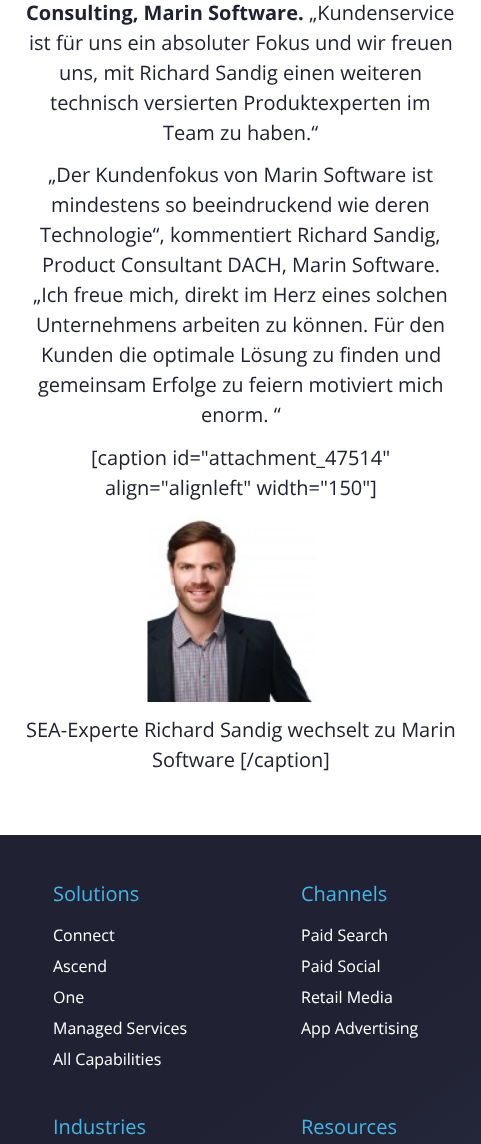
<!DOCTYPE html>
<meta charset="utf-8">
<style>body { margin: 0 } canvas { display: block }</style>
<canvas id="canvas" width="481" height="1144"></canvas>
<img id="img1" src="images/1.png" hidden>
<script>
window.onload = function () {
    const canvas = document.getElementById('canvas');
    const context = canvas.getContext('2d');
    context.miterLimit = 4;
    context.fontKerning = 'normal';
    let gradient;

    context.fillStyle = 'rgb(255, 255, 255)';
    context.fillRect(0, 0, 481, 1144);
    context.drawImage(document.getElementById('img1'), 147, 515, 170, 187);
    gradient = context.createLinearGradient(-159, 955, 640, 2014);
    gradient.addColorStop(0.26, 'rgb(32, 34, 51)');
    gradient.addColorStop(1, 'rgb(52, 55, 80)');
    context.fillStyle = gradient;
    context.fillRect(0, 835, 481, 309);
    context.font = 'bold 20px Open Sans';
    context.fillStyle = 'rgb(32, 34, 51)';
    context.fillText('Consulting, Marin Software.', 26, 20);
    context.font = '20px Open Sans';
    context.fillText('„Kundenservice', 309, 20);
    context.fillText('ist für uns ein absoluter Fokus und wir freuen', 29, 50);
    context.fillText('uns, mit Richard Sandig einen weiteren', 59, 80);
    context.fillText('technisch versierten Produktexperten im', 50, 110);
    context.fillText('Team zu haben.“', 163, 140);
    context.fillText('„Der Kundenfokus von Marin Software ist', 48, 182);
    context.fillText('mindestens so beeindruckend wie deren', 51, 212);
    context.fillText('Technologie“, kommentiert Richard Sandig,', 40, 242);
    context.fillText('Product Consultant DACH, Marin Software.', 42, 272);
    context.fillText('„Ich freue mich, direkt im Herz eines solchen', 33, 302);
    context.fillText('Unternehmens arbeiten zu können. Für den', 36, 332);
    context.fillText('Kunden die optimale Lösung zu finden und', 41, 362);
    context.fillText('gemeinsam Erfolge zu feiern motiviert mich', 38, 392);
    context.fillText('enorm. “', 201, 422);
    context.fillText('[caption id="attachment_47514"', 91, 465);
    context.fillText('align="alignleft" width="150"]', 105, 495);
    context.fillText('SEA-Experte Richard Sandig wechselt zu Marin', 26, 737);
    context.fillText('Software [/caption]', 152, 767);
    context.fillStyle = 'rgb(65, 182, 230)';
    context.fillText('Solutions', 53, 901);
    context.font = '16px Open Sans';
    context.fillStyle = 'rgb(255, 255, 255)';
    context.fillText('Connect', 53, 941);
    context.fillText('Ascend', 53, 972);
    context.fillText('One', 53, 1003);
    context.fillText('Managed Services', 53, 1034);
    context.fillText('All Capabilities', 53, 1065);
    context.font = '20px Open Sans';
    context.fillStyle = 'rgb(65, 182, 230)';
    context.fillText('Channels', 301, 901);
    context.font = '16px Open Sans';
    context.fillStyle = 'rgb(255, 255, 255)';
    context.fillText('Paid Search', 301, 941);
    context.fillText('Paid Social', 301, 972);
    context.fillText('Retail Media', 301, 1003);
    context.fillText('App Advertising', 301, 1034);
    context.font = '20px Open Sans';
    context.fillStyle = 'rgb(65, 182, 230)';
    context.fillText('Industries', 53, 1134);
    context.fillText('Resources', 301, 1134);
};
</script>
